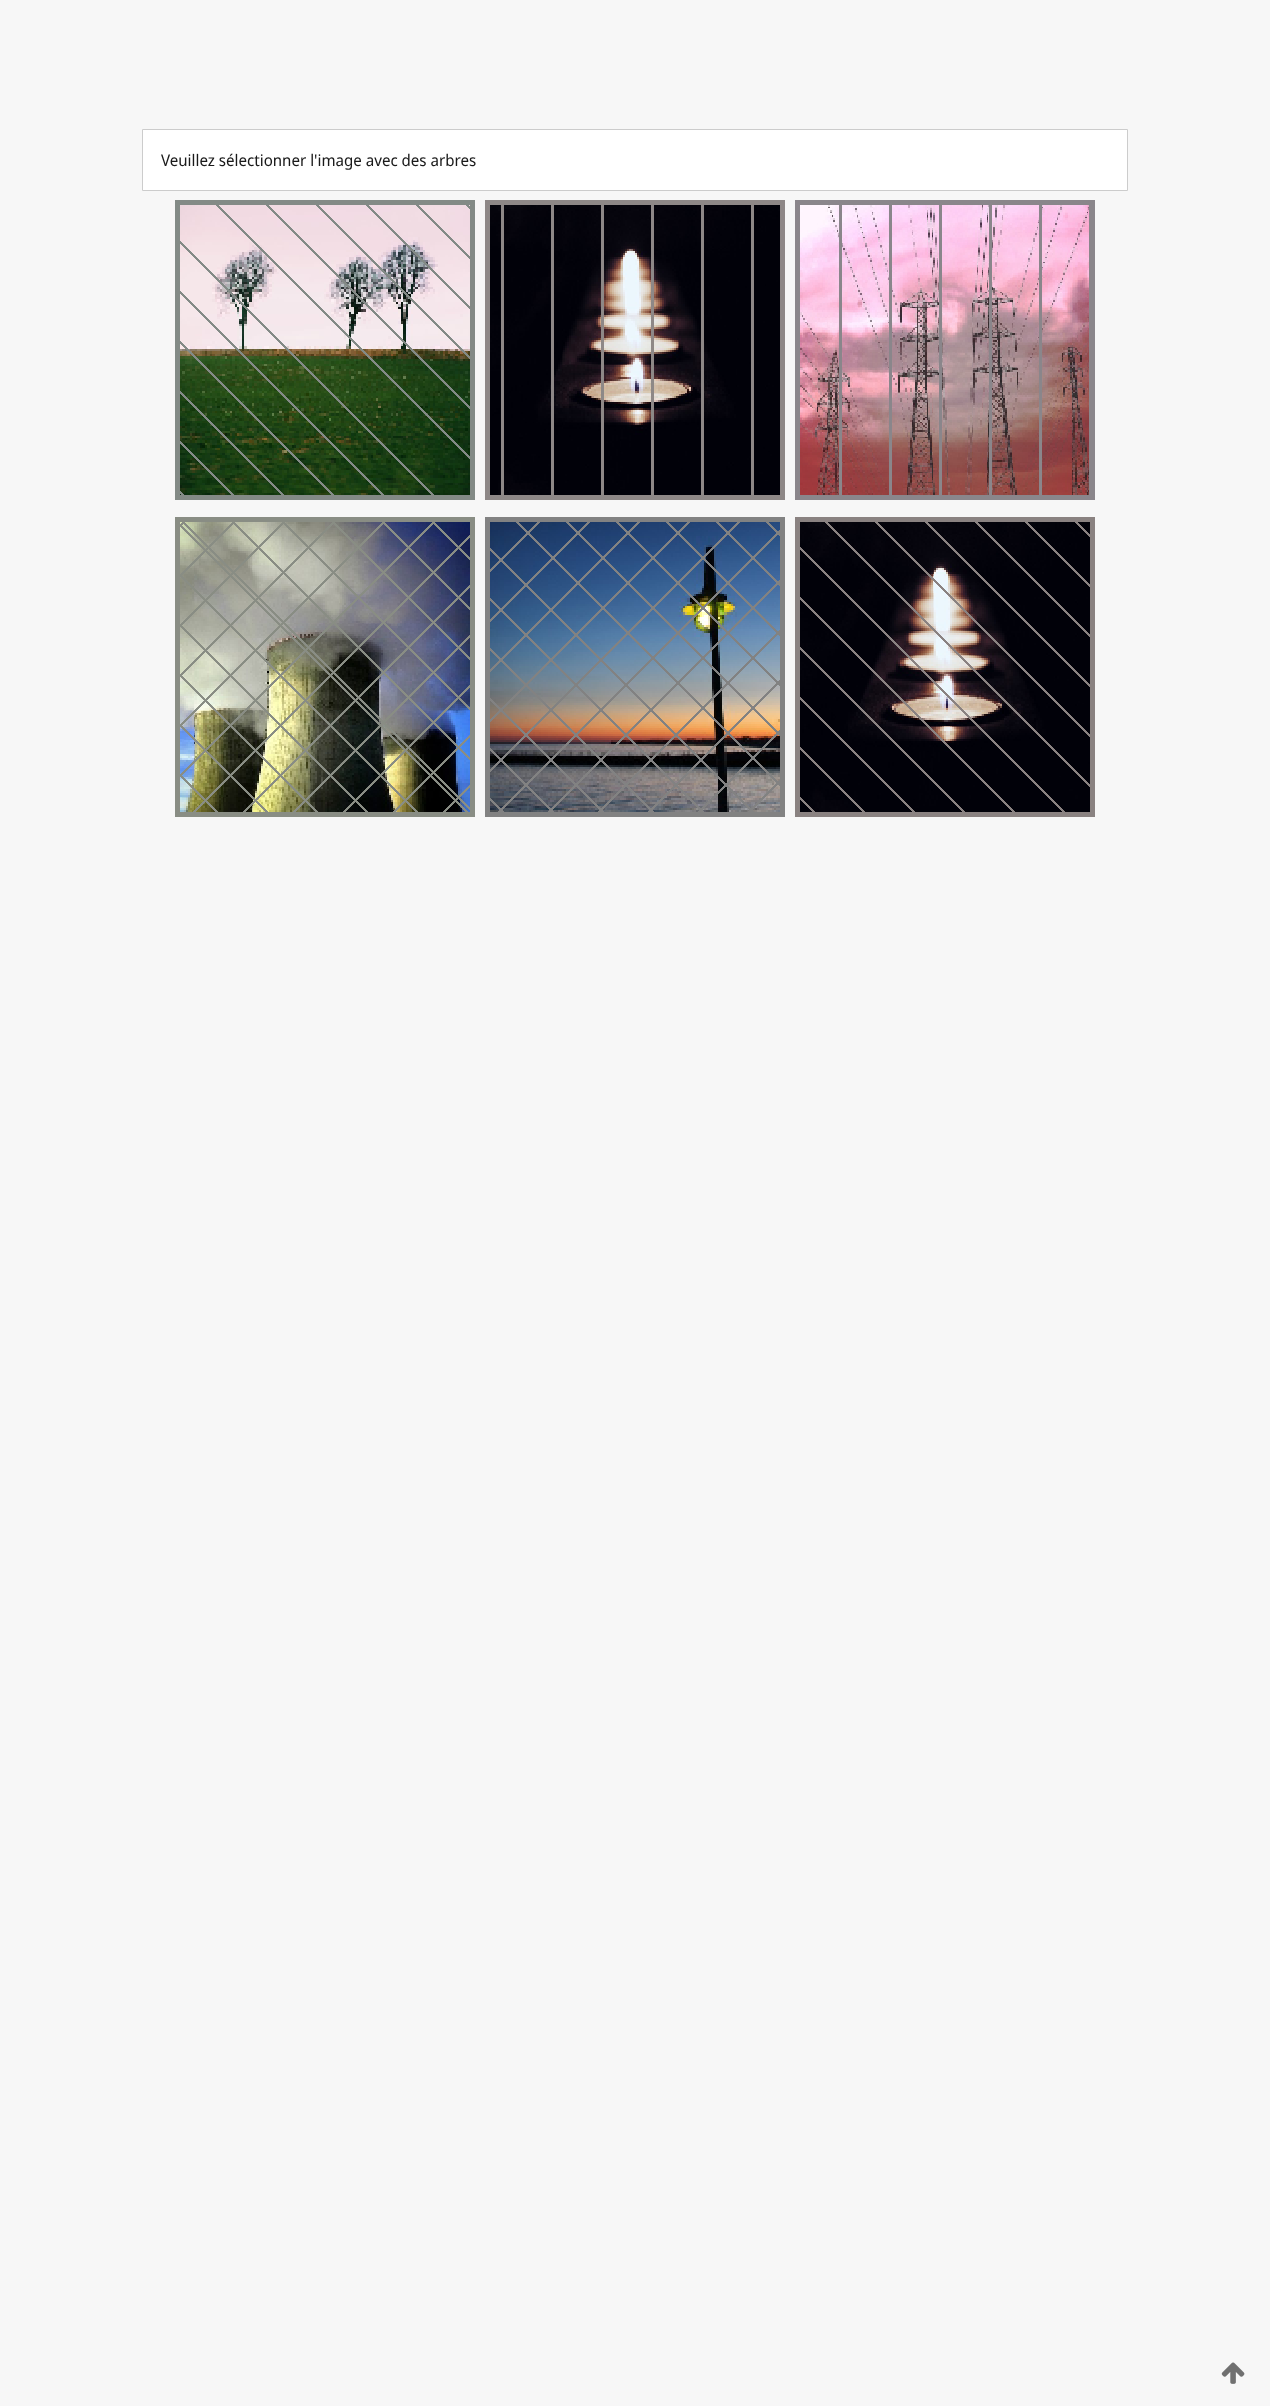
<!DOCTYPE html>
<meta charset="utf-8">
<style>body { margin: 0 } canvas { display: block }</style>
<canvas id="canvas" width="1270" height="2406"></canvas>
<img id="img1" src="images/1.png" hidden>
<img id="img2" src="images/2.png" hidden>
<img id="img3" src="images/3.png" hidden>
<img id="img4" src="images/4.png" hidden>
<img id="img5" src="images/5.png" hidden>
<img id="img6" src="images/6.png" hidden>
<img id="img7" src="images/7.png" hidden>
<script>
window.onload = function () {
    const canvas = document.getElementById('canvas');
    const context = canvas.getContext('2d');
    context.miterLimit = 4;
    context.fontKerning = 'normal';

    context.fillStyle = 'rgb(247, 247, 247)';
    context.fillRect(0, 0, 1270, 2406);
    context.fillStyle = 'rgb(255, 255, 255)';
    context.beginPath();
    context.rect(142.5, 129.5, 985, 61);
    context.fill();
    context.strokeStyle = 'rgb(204, 204, 204)';
    context.stroke();
    context.drawImage(document.getElementById('img1'), 175, 200, 300, 300);
    context.drawImage(document.getElementById('img2'), 485, 200, 300, 300);
    context.drawImage(document.getElementById('img3'), 795, 200, 300, 300);
    context.drawImage(document.getElementById('img4'), 175, 517, 300, 300);
    context.drawImage(document.getElementById('img5'), 485, 517, 300, 300);
    context.drawImage(document.getElementById('img6'), 795, 517, 300, 300);
    context.drawImage(document.getElementById('img7'), 1221, 2362, 24, 22);
    context.font = '16px Noto Sans Display';
    context.fillStyle = 'rgb(26, 26, 26)';
    context.fillText('Veuillez sélectionner l\'image avec des arbres', 161, 166);
};
</script>
